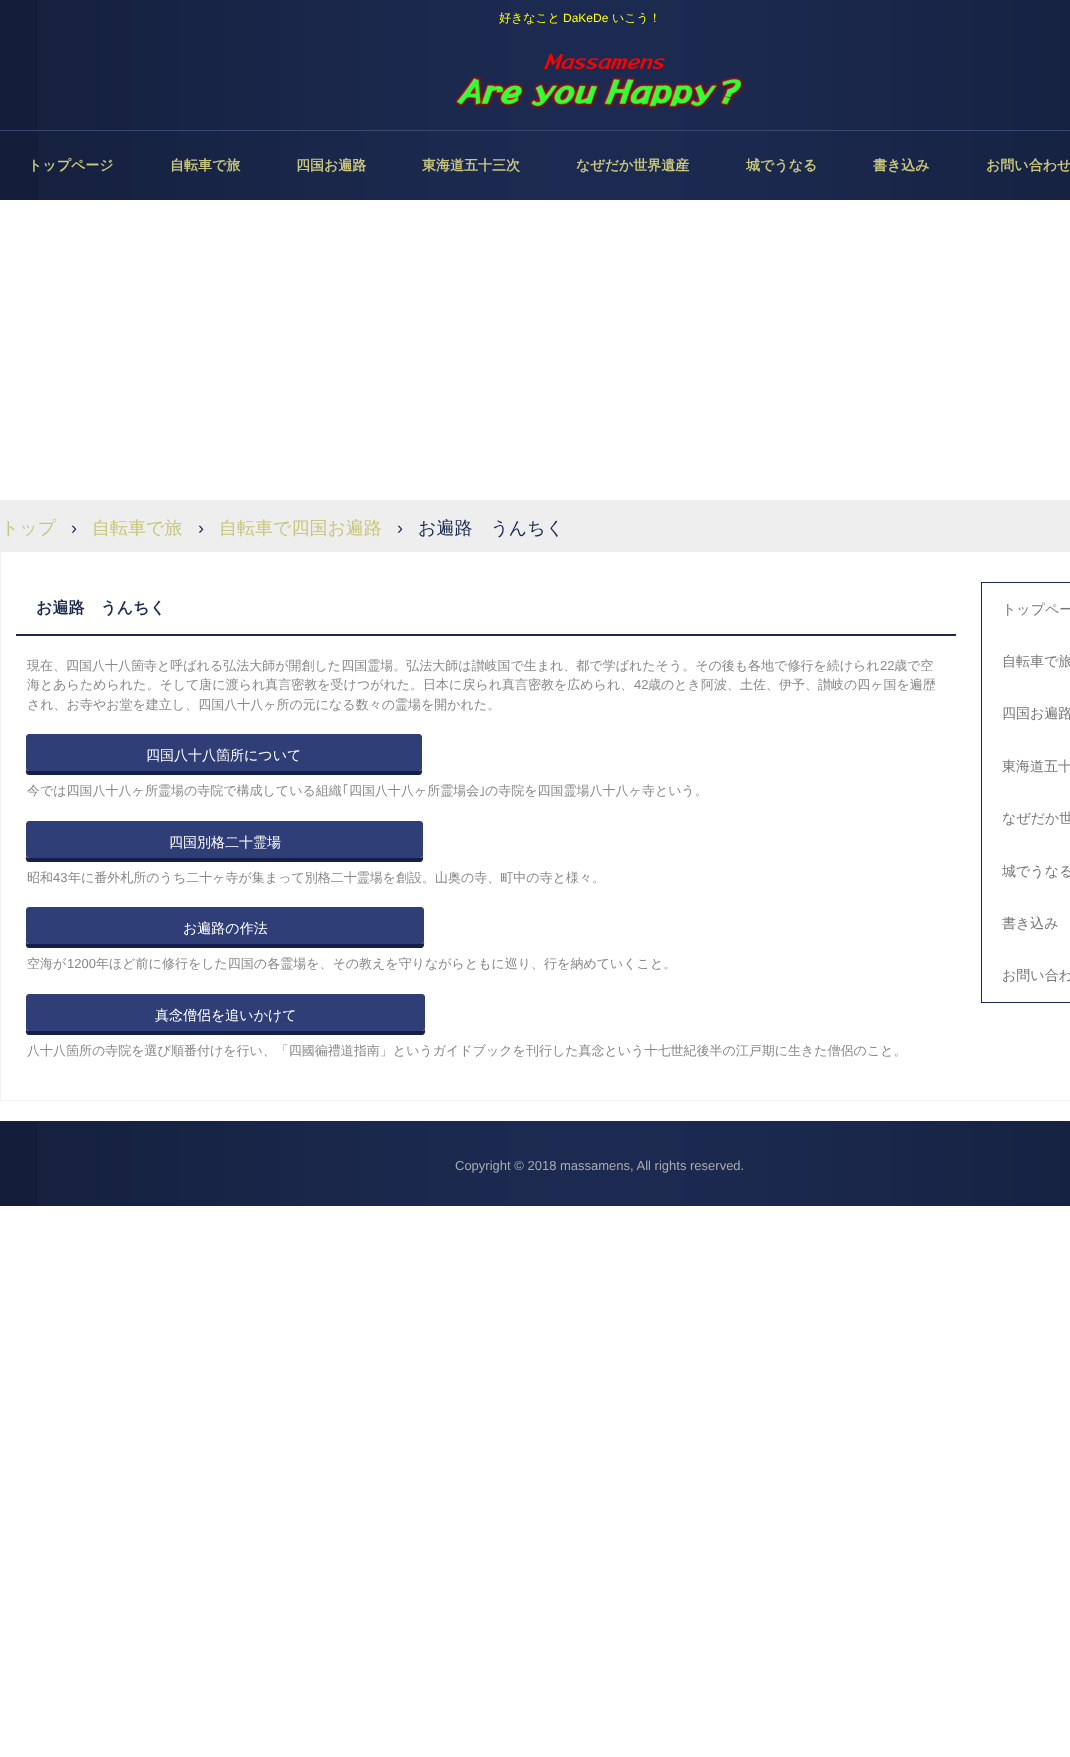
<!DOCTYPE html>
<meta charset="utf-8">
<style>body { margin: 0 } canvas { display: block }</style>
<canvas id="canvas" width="1070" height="1757"></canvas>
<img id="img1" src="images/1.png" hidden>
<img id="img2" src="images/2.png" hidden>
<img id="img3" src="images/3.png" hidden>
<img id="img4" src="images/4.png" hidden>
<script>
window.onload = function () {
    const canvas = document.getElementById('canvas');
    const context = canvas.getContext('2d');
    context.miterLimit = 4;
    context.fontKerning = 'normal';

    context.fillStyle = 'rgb(255, 255, 255)';
    context.fillRect(0, 0, 1070, 1757);
    context.fillStyle = 'rgb(20, 30, 58)';
    context.fillRect(0, 0, 37, 130);
    context.drawImage(document.getElementById('img1'), 37, 0, 1033, 130);
    context.fillStyle = 'rgb(55, 72, 116)';
    context.fillRect(0, 130, 1070, 1);
    context.drawImage(document.getElementById('img2'), 455, 54, 290, 56);
    context.fillStyle = 'rgb(20, 30, 58)';
    context.fillRect(0, 131, 38, 69);
    context.drawImage(document.getElementById('img3'), 38, 131, 1032, 69);
    context.fillStyle = 'rgb(241, 241, 241)';
    context.fillRect(0, 1100, 1070, 1);
    context.fillRect(0, 552, 1, 549);
    context.fillStyle = 'rgb(238, 238, 238)';
    context.fillRect(0, 500, 1070, 52);
    context.fillStyle = 'rgb(28, 42, 81)';
    context.fillRect(16, 634, 940, 2);
    context.fillStyle = 'rgb(20, 31, 74)';
    context.beginPath();
    context.moveTo(26, 768);
    context.bezierCurveTo(26, 770, 25, 775, 29, 775);
    context.lineTo(419, 775);
    context.bezierCurveTo(423, 775, 422, 770, 422, 768);
    context.bezierCurveTo(422, 770, 421, 771, 419, 771);
    context.lineTo(29, 771);
    context.bezierCurveTo(27, 771, 26, 770, 26, 768);
    context.closePath();
    context.fill();
    context.fillStyle = 'rgb(48, 62, 120)';
    context.beginPath();
    context.roundRect(26.5, 734.5, 395, 36, 2.5);
    context.fill();
    context.strokeStyle = 'rgb(48, 62, 120)';
    context.stroke();
    context.fillStyle = 'rgb(20, 31, 74)';
    context.beginPath();
    context.moveTo(26, 855);
    context.bezierCurveTo(26, 857, 25, 862, 29, 862);
    context.lineTo(420, 862);
    context.bezierCurveTo(424, 862, 423, 857, 423, 855);
    context.bezierCurveTo(423, 857, 422, 858, 420, 858);
    context.lineTo(29, 858);
    context.bezierCurveTo(27, 858, 26, 857, 26, 855);
    context.closePath();
    context.fill();
    context.fillStyle = 'rgb(48, 62, 120)';
    context.beginPath();
    context.roundRect(26.5, 821.5, 396, 36, 2.5);
    context.fill();
    context.stroke();
    context.fillStyle = 'rgb(20, 31, 74)';
    context.beginPath();
    context.moveTo(26, 941);
    context.bezierCurveTo(26, 943, 25, 948, 29, 948);
    context.lineTo(421, 948);
    context.bezierCurveTo(425, 948, 424, 943, 424, 941);
    context.bezierCurveTo(424, 943, 423, 944, 421, 944);
    context.lineTo(29, 944);
    context.bezierCurveTo(27, 944, 26, 943, 26, 941);
    context.closePath();
    context.fill();
    context.fillStyle = 'rgb(48, 62, 120)';
    context.beginPath();
    context.roundRect(26.5, 907.5, 397, 36, 2.5);
    context.fill();
    context.stroke();
    context.fillStyle = 'rgb(20, 31, 74)';
    context.beginPath();
    context.moveTo(26, 1028);
    context.bezierCurveTo(26, 1030, 25, 1035, 29, 1035);
    context.lineTo(422, 1035);
    context.bezierCurveTo(426, 1035, 425, 1030, 425, 1028);
    context.bezierCurveTo(425, 1030, 424, 1031, 422, 1031);
    context.lineTo(29, 1031);
    context.bezierCurveTo(27, 1031, 26, 1030, 26, 1028);
    context.closePath();
    context.fill();
    context.fillStyle = 'rgb(48, 62, 120)';
    context.beginPath();
    context.roundRect(26.5, 994.5, 398, 36, 2.5);
    context.fill();
    context.stroke();
    context.strokeStyle = 'rgb(28, 42, 81)';
    context.strokeRect(981.5, 582.5, 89, 420);
    context.fillStyle = 'rgb(20, 30, 58)';
    context.fillRect(0, 1121, 37, 85);
    context.drawImage(document.getElementById('img4'), 37, 1121, 1033, 85);
    context.font = '500 12px WenQuanYi Zen Hei';
    context.fillStyle = 'rgb(255, 255, 0)';
    context.fillText('好きなこと', 499, 22);
    context.font = '12px Liberation Sans';
    context.fillText('DaKeDe', 563, 22);
    context.font = '500 12px WenQuanYi Zen Hei';
    context.fillText('いこう！', 612, 22);
    context.font = 'bold 14px WenQuanYi Zen Hei';
    context.fillStyle = 'rgb(201, 198, 125)';
    context.fillText('トップページ', 28, 170);
    context.fillText('自転車で旅', 170, 170);
    context.fillText('四国お遍路', 296, 170);
    context.fillText('東海道五十三次', 422, 170);
    context.fillText('なぜだか世界遺産', 576, 170);
    context.fillText('城でうなる', 746, 170);
    context.fillText('書き込み', 873, 170);
    context.fillText('お問い合わせ', 986, 170);
    context.font = '500 18px WenQuanYi Zen Hei';
    context.fillText('トップ', 1, 534);
    context.font = '18px Liberation Sans';
    context.fillStyle = 'rgb(28, 42, 81)';
    context.fillText('›', 71, 534);
    context.font = '500 18px WenQuanYi Zen Hei';
    context.fillStyle = 'rgb(201, 198, 125)';
    context.fillText('自転車で旅', 92, 534);
    context.font = '18px Liberation Sans';
    context.fillStyle = 'rgb(28, 42, 81)';
    context.fillText('›', 198, 534);
    context.font = '500 18px WenQuanYi Zen Hei';
    context.fillStyle = 'rgb(201, 198, 125)';
    context.fillText('自転車で四国お遍路', 219, 534);
    context.font = '18px Liberation Sans';
    context.fillStyle = 'rgb(28, 42, 81)';
    context.fillText('›', 397, 534);
    context.font = '500 18px WenQuanYi Zen Hei';
    context.fillText('お遍路　うんちく', 418, 534);
    context.font = 'bold 16px WenQuanYi Zen Hei';
    context.fillText('お遍路　うんちく', 36, 613);
    context.font = '500 13px WenQuanYi Zen Hei';
    context.fillStyle = 'rgb(136, 136, 136)';
    context.fillText('現在、四国八十八箇寺と呼ばれる弘法大師が開創した四国霊場。弘法大師は讃岐国で生まれ、都で学ばれたそう。その後も各地で修行を続けられ', 27, 670);
    context.font = '13px Liberation Sans';
    context.fillText('22', 880, 670);
    context.font = '500 13px WenQuanYi Zen Hei';
    context.fillText('歳で空', 894, 670);
    context.fillText('海とあらためられた。そして唐に渡られ真言密教を受けつがれた。日本に戻られ真言密教を広められ、', 27, 689);
    context.font = '13px Liberation Sans';
    context.fillText('42', 634, 689);
    context.font = '500 13px WenQuanYi Zen Hei';
    context.fillText('歳のとき阿波、土佐、伊予、讃岐の四ヶ国を遍歴', 648, 689);
    context.fillText('され、お寺やお堂を建立し、四国八十八ヶ所の元になる数々の霊場を開かれた。', 27, 709);
    context.font = '500 14px WenQuanYi Zen Hei';
    context.fillStyle = 'rgb(255, 255, 255)';
    context.fillText('四国八十八箇所について', 146, 760);
    context.font = '500 13px WenQuanYi Zen Hei';
    context.fillStyle = 'rgb(136, 136, 136)';
    context.fillText('今では四国八十八ヶ所霊場の寺院で構成している組織', 27, 795);
    context.font = '13px IPAPGothic';
    context.fillText('｢', 342, 795);
    context.font = '500 13px WenQuanYi Zen Hei';
    context.fillText('四国八十八ヶ所霊場会', 349, 795);
    context.font = '13px IPAPGothic';
    context.fillText('｣', 479, 795);
    context.font = '500 13px WenQuanYi Zen Hei';
    context.fillText('の寺院を四国霊場八十八ヶ寺という。', 485, 795);
    context.font = '500 14px WenQuanYi Zen Hei';
    context.fillStyle = 'rgb(255, 255, 255)';
    context.fillText('四国別格二十霊場', 169, 847);
    context.font = '500 13px WenQuanYi Zen Hei';
    context.fillStyle = 'rgb(136, 136, 136)';
    context.fillText('昭和', 27, 882);
    context.font = '13px Liberation Sans';
    context.fillText('43', 53, 882);
    context.font = '500 13px WenQuanYi Zen Hei';
    context.fillText('年に番外札所のうち二十ヶ寺が集まって別格二十霊場を創設。山奥の寺、町中の寺と様々。', 68, 882);
    context.font = '500 14px WenQuanYi Zen Hei';
    context.fillStyle = 'rgb(255, 255, 255)';
    context.fillText('お遍路の作法', 183, 933);
    context.font = '500 13px WenQuanYi Zen Hei';
    context.fillStyle = 'rgb(136, 136, 136)';
    context.fillText('空海が', 27, 968);
    context.font = '13px Liberation Sans';
    context.fillText('1200', 67, 968);
    context.font = '500 13px WenQuanYi Zen Hei';
    context.fillText('年ほど前に修行をした四国の各霊場を、その教えを守りながらともに巡り、行を納めていくこと。', 96, 968);
    context.font = '500 14px WenQuanYi Zen Hei';
    context.fillStyle = 'rgb(255, 255, 255)';
    context.fillText('真念僧侶を追いかけて', 155, 1020);
    context.font = '500 13px WenQuanYi Zen Hei';
    context.fillStyle = 'rgb(136, 136, 136)';
    context.fillText('八十八箇所の寺院を選び順番付けを行い、「四國徧禮道指南」というガイドブックを刊行した真念という十七世紀後半の江戸期に生きた僧侶のこと。', 27, 1055);
    context.font = '500 14px WenQuanYi Zen Hei';
    context.fillStyle = 'rgb(119, 119, 119)';
    context.fillText('トップペー', 1002, 614);
    context.fillText('自転車で旅', 1002, 666);
    context.fillText('四国お遍路', 1002, 718);
    context.fillText('東海道五十', 1002, 771);
    context.fillText('なぜだか世', 1002, 823);
    context.fillText('城でうなる', 1002, 876);
    context.fillText('書き込み', 1002, 928);
    context.fillText('お問い合わ', 1002, 980);
    context.font = '13px Liberation Sans';
    context.fillStyle = 'rgb(170, 170, 170)';
    context.fillText('Copyright © 2018 massamens, All rights reserved.', 455, 1170);
};
</script>
